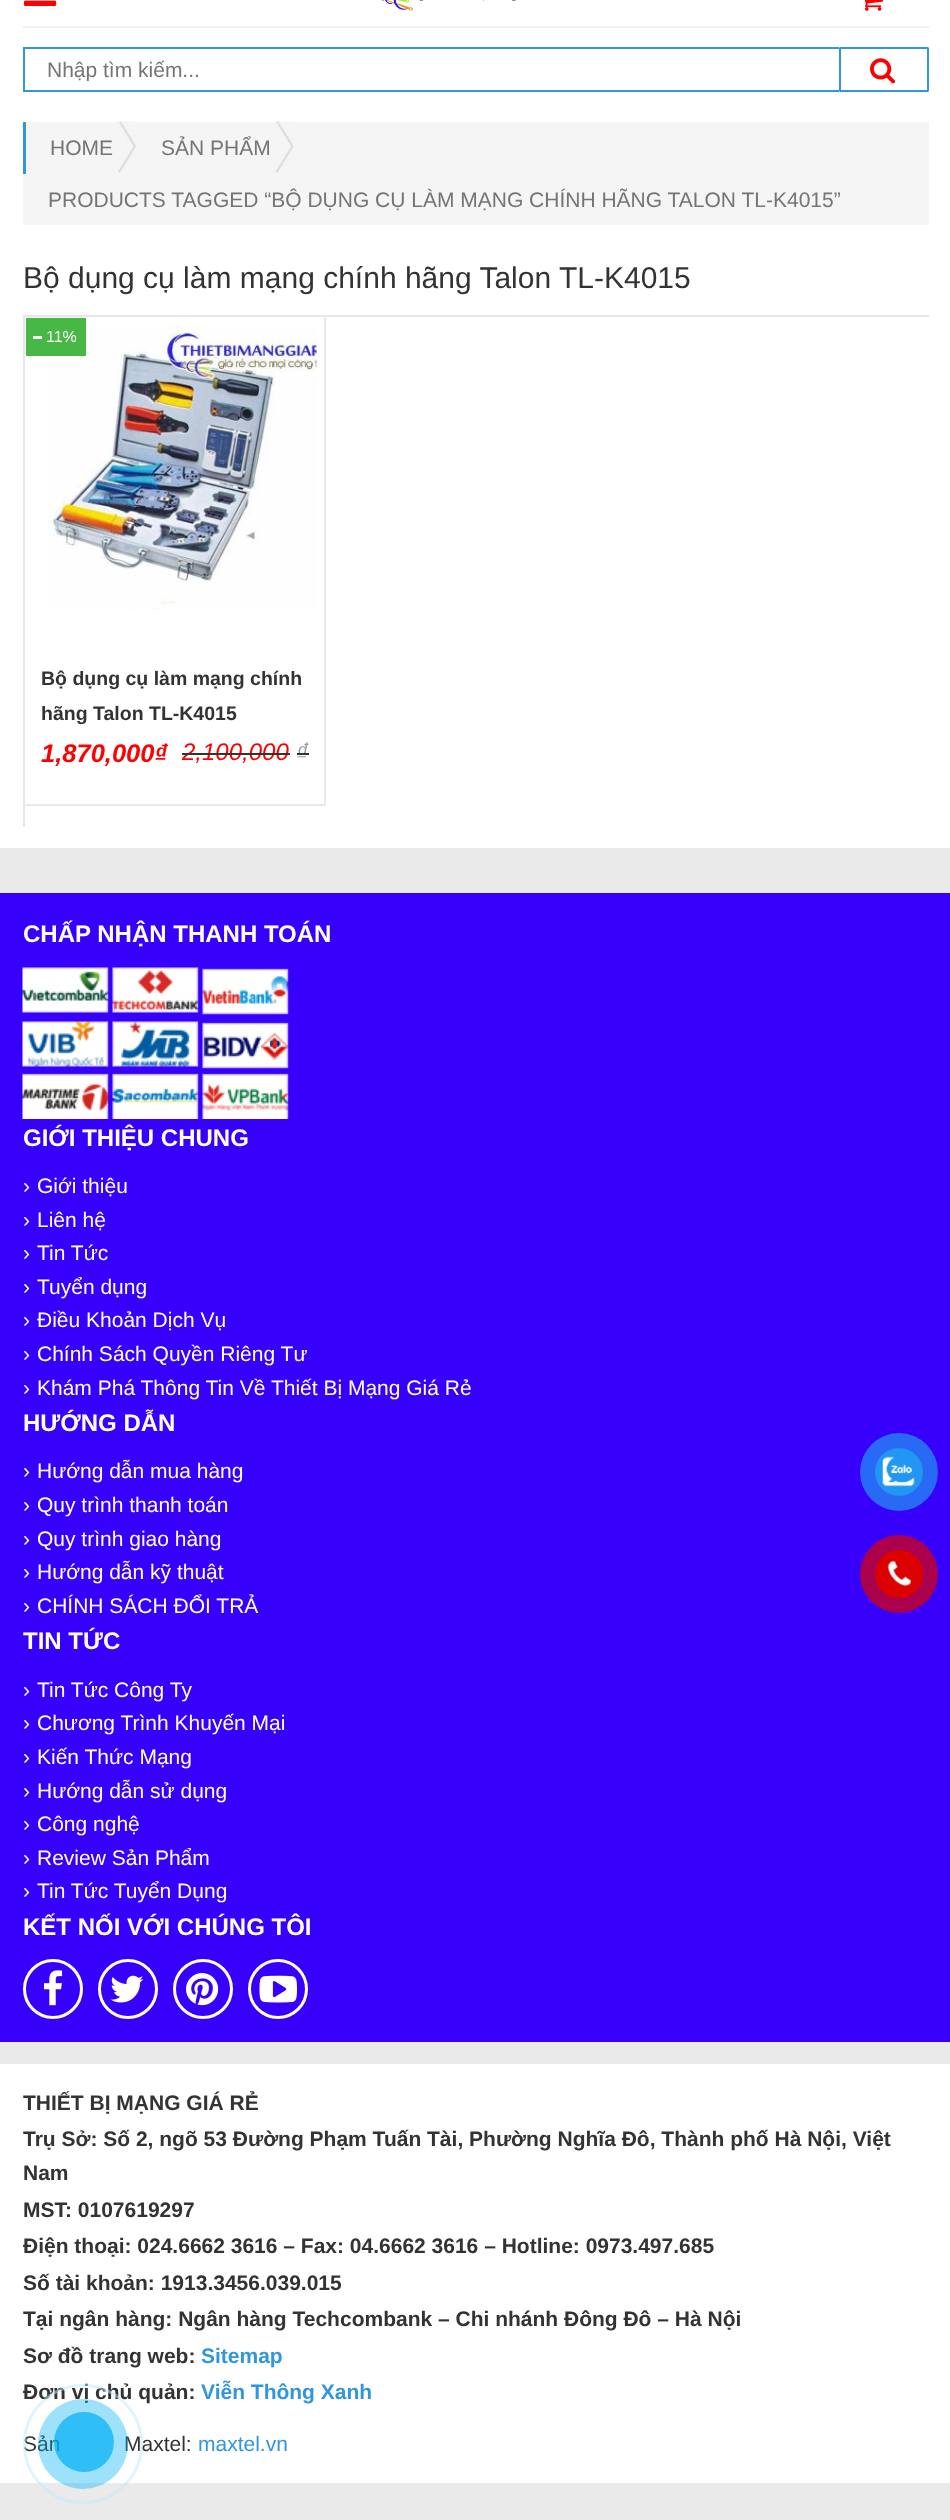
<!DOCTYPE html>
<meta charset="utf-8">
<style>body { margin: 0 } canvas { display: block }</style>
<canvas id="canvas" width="950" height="2520"></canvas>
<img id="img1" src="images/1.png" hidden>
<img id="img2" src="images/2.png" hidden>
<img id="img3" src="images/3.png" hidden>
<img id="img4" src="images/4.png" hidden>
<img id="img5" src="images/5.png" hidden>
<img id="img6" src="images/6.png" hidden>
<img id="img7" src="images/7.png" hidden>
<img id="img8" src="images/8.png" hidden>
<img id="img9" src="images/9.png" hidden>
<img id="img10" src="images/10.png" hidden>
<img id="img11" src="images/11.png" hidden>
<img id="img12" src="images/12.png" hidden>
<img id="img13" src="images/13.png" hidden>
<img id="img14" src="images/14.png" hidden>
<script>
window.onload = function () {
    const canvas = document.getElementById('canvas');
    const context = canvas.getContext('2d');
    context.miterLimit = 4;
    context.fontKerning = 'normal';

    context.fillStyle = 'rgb(255, 255, 255)';
    context.fillRect(0, 0, 950, 2520);
    context.fillStyle = 'rgb(240, 240, 240)';
    context.fillRect(23, 26, 906, 2);
    context.drawImage(document.getElementById('img1'), 381, 0, 135, 11);
    context.drawImage(document.getElementById('img2'), 24, 0, 33, 6);
    context.drawImage(document.getElementById('img3'), 864, 0, 20, 11);
    context.fillStyle = 'rgb(48, 150, 222)';
    context.fillRect(23, 47, 816, 2);
    context.fillRect(23, 90, 816, 2);
    context.fillRect(23, 47, 2, 45);
    context.beginPath();
    context.roundRect(840, 48, 88, 43, 0.5);
    context.strokeStyle = 'rgb(48, 150, 222)';
    context.lineWidth = 2;
    context.stroke();
    context.drawImage(document.getElementById('img4'), 870, 58, 26, 26);
    context.fillStyle = 'rgb(245, 245, 245)';
    context.fillRect(23, 122, 906, 103);
    context.drawImage(document.getElementById('img5'), 117, 121, 19, 52);
    context.fillStyle = 'rgb(48, 150, 222)';
    context.fillRect(23, 122, 3, 52);
    context.drawImage(document.getElementById('img6'), 275, 121, 19, 52);
    context.fillStyle = 'rgb(232, 232, 232)';
    context.fillRect(23, 315, 906, 2);
    context.fillRect(23, 315, 2, 512);
    context.beginPath();
    context.moveTo(326, 316);
    context.lineTo(326, 806);
    context.lineTo(324, 804);
    context.lineTo(324, 318);
    context.closePath();
    context.fill();
    context.beginPath();
    context.moveTo(326, 806);
    context.lineTo(24, 806);
    context.lineTo(26, 804);
    context.lineTo(324, 804);
    context.closePath();
    context.fill();
    context.drawImage(document.getElementById('img7'), 48, 325, 269, 284);
    context.fillStyle = 'rgb(71, 184, 69)';
    context.fillRect(26, 318, 60, 38);
    context.fillStyle = 'rgb(255, 255, 255)';
    context.fillRect(33, 336, 9, 3);
    context.fillStyle = 'rgb(234, 234, 234)';
    context.fillRect(0, 848, 950, 1672);
    context.fillStyle = 'rgb(55, 0, 251)';
    context.fillRect(0, 893, 950, 1149);
    context.drawImage(document.getElementById('img8'), 22, 967, 267, 152);
    context.beginPath();
    context.arc(53, 1989, 28.5, 0, 2 * Math.PI);
    context.strokeStyle = 'rgb(255, 255, 255)';
    context.lineWidth = 3;
    context.stroke();
    context.drawImage(document.getElementById('img9'), 44, 1970, 19, 36);
    context.beginPath();
    context.arc(128, 1989, 28.5, 0, 2 * Math.PI);
    context.stroke();
    context.drawImage(document.getElementById('img10'), 110, 1975, 34, 28);
    context.beginPath();
    context.arc(203, 1989, 28.5, 0, 2 * Math.PI);
    context.stroke();
    context.drawImage(document.getElementById('img11'), 186, 1973, 33, 33);
    context.beginPath();
    context.arc(278, 1989, 28.5, 0, 2 * Math.PI);
    context.stroke();
    context.drawImage(document.getElementById('img12'), 259, 1975, 38, 28);
    context.fillStyle = 'rgb(255, 255, 255)';
    context.fillRect(0, 2064, 950, 419);
    context.fillStyle = 'rgb(40, 105, 245)';
    context.beginPath();
    context.arc(899, 1472, 39, 0, 2 * Math.PI);
    context.fill();
    context.fillStyle = 'rgb(33, 150, 243)';
    context.beginPath();
    context.arc(899, 1472, 24, 0, 2 * Math.PI);
    context.fill();
    context.drawImage(document.getElementById('img13'), 882, 1456, 33, 31);
    context.fillStyle = 'rgb(171, 0, 75)';
    context.beginPath();
    context.arc(899, 1574, 39, 0, 2 * Math.PI);
    context.fill();
    context.fillStyle = 'rgb(221, 0, 0)';
    context.beginPath();
    context.arc(899, 1574, 24, 0, 2 * Math.PI);
    context.fill();
    context.drawImage(document.getElementById('img14'), 887, 1560, 24, 27);
    context.save();
    context.beginPath();
    context.rect(47, 57, 789, 24);
    context.clip();
    context.font = '21px Liberation Sans';
    context.fillStyle = 'rgb(117, 117, 117)';
    context.fillText('Nhập tìm kiếm...', 47, 77);
    context.restore();
    context.font = '21px Liberation Sans';
    context.fillStyle = 'rgb(117, 117, 117)';
    context.fillText('HOME', 50, 155);
    context.fillText('SẢN PHẨM', 161, 155);
    context.fillText('PRODUCTS TAGGED “BỘ DỤNG CỤ LÀM MẠNG CHÍNH HÃNG TALON TL-K4015”', 48, 207);
    context.font = '30px Liberation Sans';
    context.fillStyle = 'rgb(51, 51, 51)';
    context.fillText('Bộ dụng cụ làm mạng chính hãng Talon TL-K4015', 23, 288);
    context.font = '16px Liberation Sans';
    context.fillStyle = 'rgb(255, 255, 255)';
    context.fillText('11%', 46, 342);
    context.font = 'bold 19.5px Liberation Sans';
    context.fillStyle = 'rgb(51, 51, 51)';
    context.fillText('Bộ dụng cụ làm mạng chính', 41, 685);
    context.fillText('hãng Talon TL-K4015', 41, 720);
    context.font = 'italic bold 25.5px Liberation Sans';
    context.fillStyle = 'rgb(255, 0, 0)';
    context.fillText('1,870,000₫', 41, 762);
    context.font = 'italic 24px Liberation Sans';
    context.fillText('2,100,000', 182, 760);
    context.fillStyle = 'rgb(51, 51, 51)';
    context.fillRect(182, 753, 108, 2);
    context.fillStyle = 'rgb(153, 153, 153)';
    context.fillText('₫', 296, 760);
    context.fillStyle = 'rgb(51, 51, 51)';
    context.fillRect(297, 753, 12, 2);
    context.font = 'bold 24px Liberation Sans';
    context.fillStyle = 'rgb(255, 255, 255)';
    context.fillText('CHẤP NHẬN THANH TOÁN', 23, 942);
    context.fillText('GIỚI THIỆU CHUNG', 23, 1146);
    context.font = '21px Liberation Sans';
    context.fillText('›', 23, 1193);
    context.fillText('Giới thiệu', 37, 1193);
    context.fillText('›', 23, 1227);
    context.fillText('Liên hệ', 37, 1227);
    context.fillText('›', 23, 1260);
    context.fillText('Tin Tức', 37, 1260);
    context.fillText('›', 23, 1294);
    context.fillText('Tuyển dụng', 37, 1294);
    context.fillText('›', 23, 1327);
    context.fillText('Điều Khoản Dịch Vụ', 37, 1327);
    context.fillText('›', 23, 1361);
    context.fillText('Chính Sách Quyền Riêng Tư', 37, 1361);
    context.fillText('›', 23, 1395);
    context.fillText('Khám Phá Thông Tin Về Thiết Bị Mạng Giá Rẻ', 37, 1395);
    context.font = 'bold 24px Liberation Sans';
    context.fillText('HƯỚNG DẪN', 23, 1431);
    context.font = '21px Liberation Sans';
    context.fillText('›', 23, 1478);
    context.fillText('Hướng dẫn mua hàng', 37, 1478);
    context.fillText('›', 23, 1512);
    context.fillText('Quy trình thanh toán', 37, 1512);
    context.fillText('›', 23, 1546);
    context.fillText('Quy trình giao hàng', 37, 1546);
    context.fillText('›', 23, 1579);
    context.fillText('Hướng dẫn kỹ thuật', 37, 1579);
    context.fillText('›', 23, 1613);
    context.fillText('CHÍNH SÁCH ĐỔI TRẢ', 37, 1613);
    context.font = 'bold 24px Liberation Sans';
    context.fillText('TIN TỨC', 23, 1649);
    context.font = '21px Liberation Sans';
    context.fillText('›', 23, 1697);
    context.fillText('Tin Tức Công Ty', 37, 1697);
    context.fillText('›', 23, 1730);
    context.fillText('Chương Trình Khuyến Mại', 37, 1730);
    context.fillText('›', 23, 1764);
    context.fillText('Kiến Thức Mạng', 37, 1764);
    context.fillText('›', 23, 1798);
    context.fillText('Hướng dẫn sử dụng', 37, 1798);
    context.fillText('›', 23, 1831);
    context.fillText('Công nghệ', 37, 1831);
    context.fillText('›', 23, 1865);
    context.fillText('Review Sản Phẩm', 37, 1865);
    context.fillText('›', 23, 1898);
    context.fillText('Tin Tức Tuyển Dụng', 37, 1898);
    context.font = 'bold 24px Liberation Sans';
    context.fillText('KẾT NỐI VỚI CHÚNG TÔI', 23, 1935);
    context.font = 'bold 21px Liberation Sans';
    context.fillStyle = 'rgb(51, 51, 51)';
    context.fillText('THIẾT BỊ MẠNG GIÁ RẺ', 23, 2110);
    context.fillText('Trụ Sở: Số 2, ngõ 53 Đường Phạm Tuấn Tài, Phường Nghĩa Đô, Thành phố Hà Nội, Việt', 23, 2146);
    context.fillText('Nam', 23, 2180);
    context.fillText('MST: 0107619297', 23, 2217);
    context.fillText('Điện thoại: 024.6662 3616 – Fax: 04.6662 3616 – Hotline: 0973.497.685', 23, 2253);
    context.fillText('Số tài khoản: 1913.3456.039.015', 23, 2290);
    context.fillText('Tại ngân hàng: Ngân hàng Techcombank – Chi nhánh Đông Đô – Hà Nội', 23, 2326);
    context.fillText('Sơ đồ trang web:', 23, 2363);
    context.fillStyle = 'rgb(48, 150, 222)';
    context.fillText('Sitemap', 201, 2363);
    context.fillStyle = 'rgb(51, 51, 51)';
    context.fillText('Đơn vị chủ quản:', 23, 2399);
    context.fillStyle = 'rgb(48, 150, 222)';
    context.fillText('Viễn Thông Xanh', 201, 2399);
    context.font = '21px Liberation Sans';
    context.fillStyle = 'rgb(51, 51, 51)';
    context.fillText('Sản', 23, 2451);
    context.fillText('Maxtel:', 124, 2451);
    context.fillStyle = 'rgb(48, 150, 222)';
    context.fillText('maxtel.vn', 198, 2451);
    context.beginPath();
    context.arc(83, 2444, 58.5, 0, 2 * Math.PI);
    context.strokeStyle = 'rgba(191, 235, 252, 0.5)';
    context.stroke();
    context.fillStyle = 'rgba(0, 175, 242, 0.38)';
    context.beginPath();
    context.arc(83, 2444, 45, 0, 2 * Math.PI);
    context.fill();
    context.fillStyle = 'rgba(0, 175, 242, 0.7)';
    context.beginPath();
    context.arc(84, 2442, 30, 0, 2 * Math.PI);
    context.fill();
};
</script>
